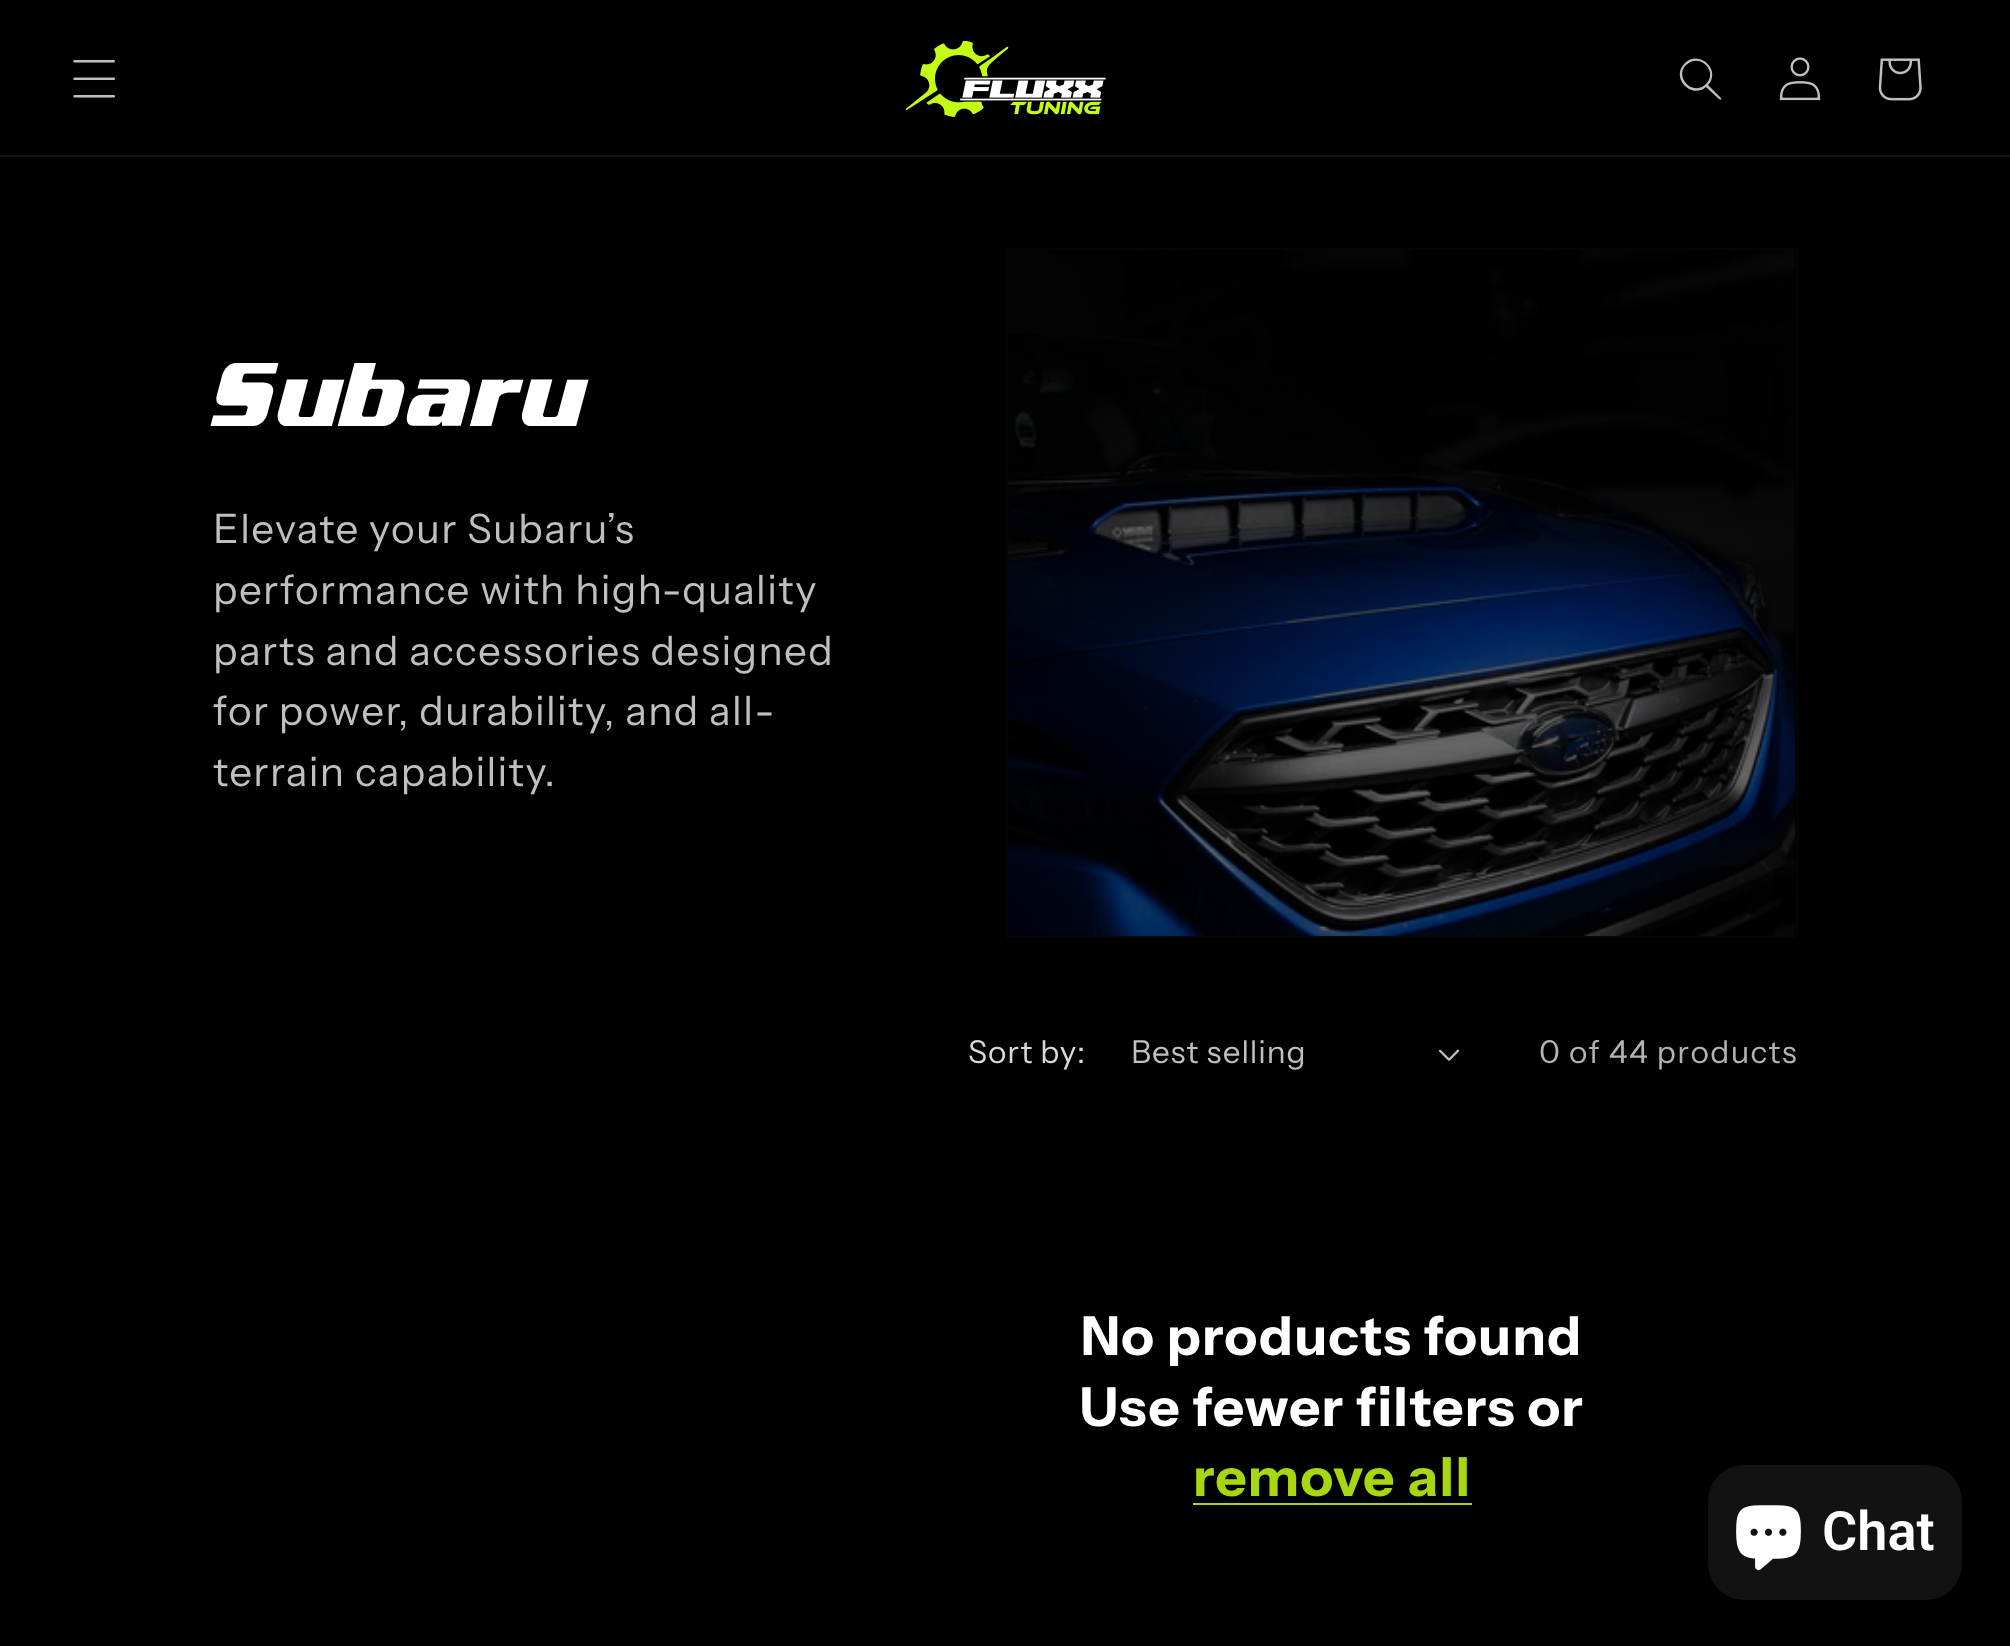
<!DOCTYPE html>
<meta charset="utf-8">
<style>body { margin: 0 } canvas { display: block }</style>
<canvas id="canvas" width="2010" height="1646"></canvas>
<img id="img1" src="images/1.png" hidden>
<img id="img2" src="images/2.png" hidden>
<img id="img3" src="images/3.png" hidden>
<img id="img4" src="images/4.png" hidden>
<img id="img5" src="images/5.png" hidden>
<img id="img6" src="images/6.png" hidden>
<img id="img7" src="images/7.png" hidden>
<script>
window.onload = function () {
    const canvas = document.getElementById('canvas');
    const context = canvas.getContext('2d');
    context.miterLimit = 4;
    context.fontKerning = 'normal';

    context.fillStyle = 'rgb(0, 0, 0)';
    context.fillRect(0, 0, 2010, 1646);
    context.fillStyle = 'rgb(20, 20, 20)';
    context.fillRect(0, 155, 2010, 2);
    context.drawImage(document.getElementById('img1'), 73, 60, 42, 38);
    context.drawImage(document.getElementById('img2'), 905, 41, 201, 76);
    context.fillStyle = 'rgb(191, 191, 191)';
    context.beginPath();
    context.moveTo(1706, 84);
    context.bezierCurveTo(1693, 97, 1674, 77, 1686, 65);
    context.bezierCurveTo(1699, 52, 1719, 71, 1706, 84);
    context.moveTo(1706, 87);
    context.bezierCurveTo(1691, 100, 1670, 77, 1685, 63);
    context.bezierCurveTo(1699, 49, 1722, 70, 1708, 85);
    context.lineTo(1721, 98);
    context.bezierCurveTo(1722, 100, 1720, 100, 1719, 99);
    context.closePath();
    context.fill('evenodd');
    context.drawImage(document.getElementById('img3'), 1779, 57, 42, 44);
    context.drawImage(document.getElementById('img4'), 1878, 58, 44, 43);
    context.strokeStyle = 'rgb(5, 5, 5)';
    context.lineWidth = 2;
    context.strokeRect(1007, 249, 790, 688);
    context.drawImage(document.getElementById('img5'), 1008, 250, 788, 686);
    context.drawImage(document.getElementById('img6'), 1438, 1049, 22, 12);
    context.fillStyle = 'rgb(167, 215, 17)';
    context.fillRect(1193, 1503, 279, 2);
    context.fillStyle = 'rgb(18, 18, 18)';
    context.beginPath();
    context.roundRect(1708, 1465, 254, 135, 36);
    context.fill();
    context.drawImage(document.getElementById('img7'), 1736, 1505, 65, 65);
    context.letterSpacing = '1.35px';
    context.font = 'italic bold 90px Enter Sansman';
    context.fillStyle = 'rgb(255, 255, 255)';
    context.fillText('Subaru', 213, 426);
    context.font = '40.5px Instrument Sans';
    context.fillStyle = 'rgb(191, 191, 191)';
    context.fillText('Elevate your Subaru’s', 213, 543);
    context.fillText('performance with high-quality', 213, 604);
    context.fillText('parts and accessories designed', 213, 665);
    context.fillText('for power, durability, and all-', 213, 725);
    context.fillText('terrain capability.', 213, 786);
    context.letterSpacing = '0.9px';
    context.font = '31.5px Instrument Sans';
    context.fillStyle = 'rgb(217, 217, 217)';
    context.fillText('Sort by:', 968, 1063);
    context.fillStyle = 'rgb(191, 191, 191)';
    context.fillText('Best selling', 1131, 1063);
    context.letterSpacing = '1.35px';
    context.fillStyle = 'rgb(179, 179, 179)';
    context.fillText('0 of 44 products', 1539, 1063);
    context.font = 'bold 54px Instrument Sans';
    context.fillStyle = 'rgb(255, 255, 255)';
    context.fillText('No products found', 1081, 1355);
    context.fillText('Use fewer filters or', 1080, 1426);
    context.fillStyle = 'rgb(167, 215, 17)';
    context.fillText('remove all', 1193, 1496);
    context.letterSpacing = '0px';
    context.font = '600 54px Roboto';
    context.fillStyle = 'rgb(255, 255, 255)';
    context.fillText('Chat', 1822, 1550);
};
</script>
